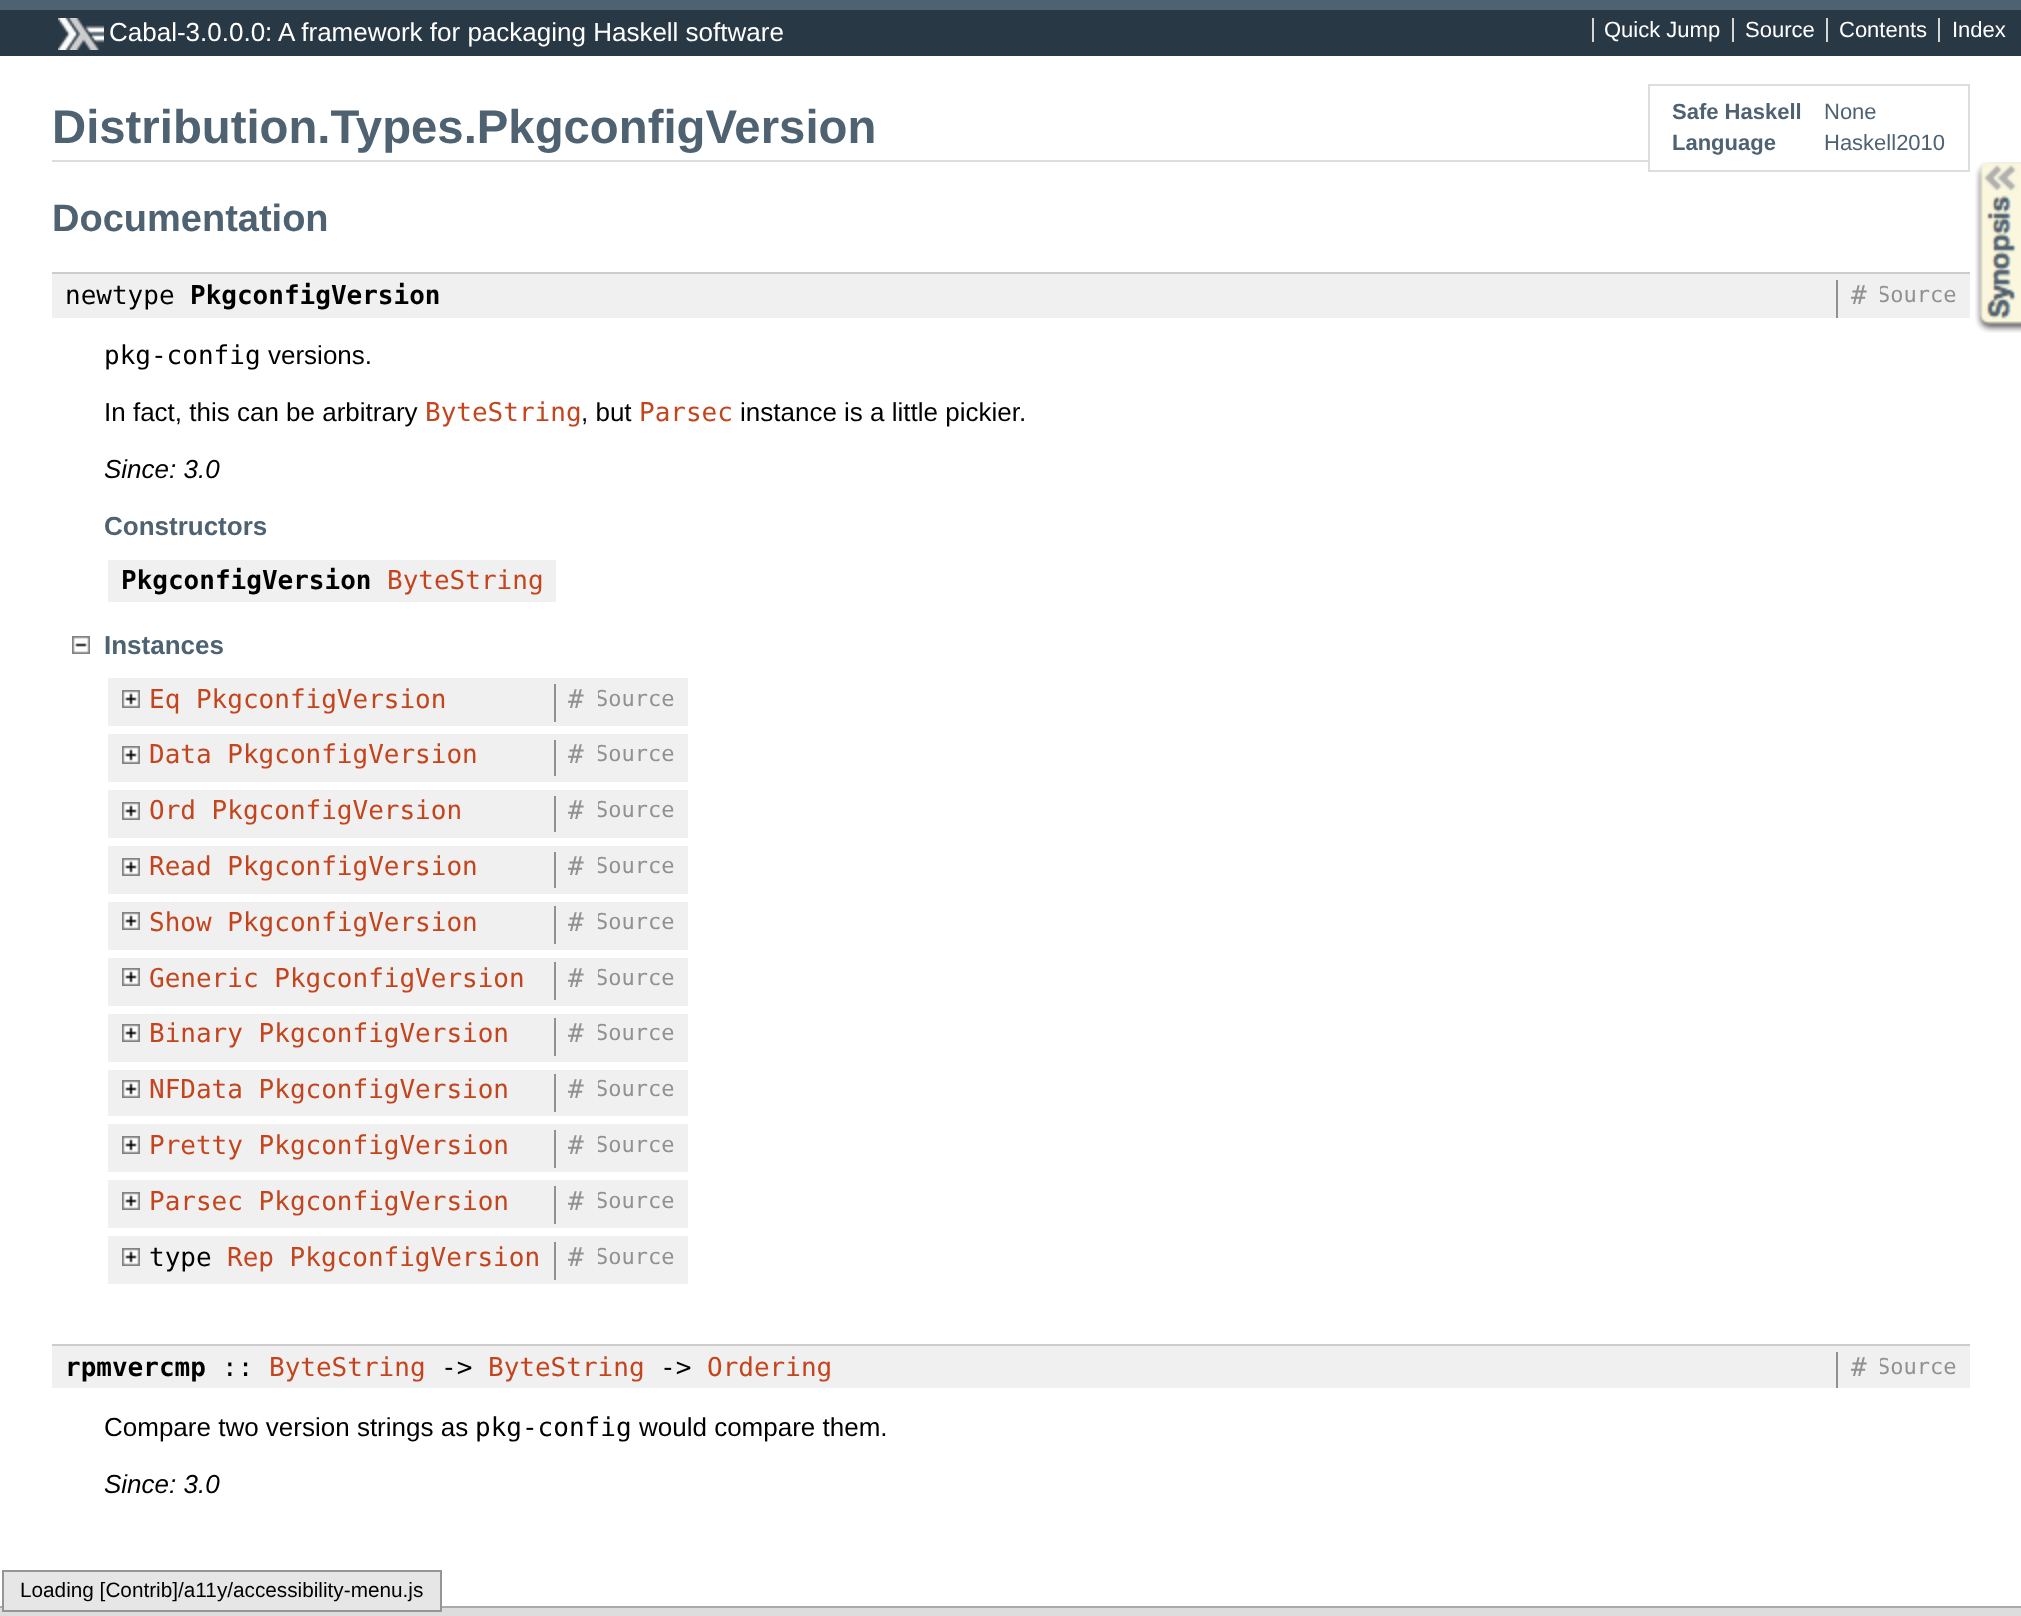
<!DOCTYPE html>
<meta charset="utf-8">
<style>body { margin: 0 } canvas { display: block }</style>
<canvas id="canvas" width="2021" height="1616"></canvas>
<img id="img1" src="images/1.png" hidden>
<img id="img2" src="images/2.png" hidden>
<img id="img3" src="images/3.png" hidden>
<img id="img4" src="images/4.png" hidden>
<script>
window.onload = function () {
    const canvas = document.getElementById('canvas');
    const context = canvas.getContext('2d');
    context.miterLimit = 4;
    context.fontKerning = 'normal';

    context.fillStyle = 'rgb(255, 255, 255)';
    context.fillRect(0, 0, 2021, 1616);
    context.fillStyle = 'rgb(41, 56, 69)';
    context.fillRect(0, 10, 2021, 46);
    context.fillStyle = 'rgb(78, 98, 114)';
    context.fillRect(0, 0, 2021, 10);
    context.drawImage(document.getElementById('img1'), 58, 18, 46, 32);
    context.fillStyle = 'rgb(213, 213, 213)';
    context.fillRect(1592, 18, 2, 24);
    context.fillRect(1732, 18, 2, 24);
    context.fillRect(1826, 18, 2, 24);
    context.fillRect(1938, 18, 2, 24);
    context.fillStyle = 'rgb(221, 221, 221)';
    context.fillRect(52, 160, 1596, 2);
    context.strokeStyle = 'rgb(221, 221, 221)';
    context.lineWidth = 2;
    context.strokeRect(1649, 85, 320, 86);
    context.fillStyle = 'rgb(240, 240, 240)';
    context.fillRect(52, 274, 1918, 44);
    context.fillStyle = 'rgb(204, 204, 204)';
    context.fillRect(52, 272, 1918, 2);
    context.fillStyle = 'rgb(145, 145, 145)';
    context.fillRect(1836, 280, 2, 38);
    context.fillStyle = 'rgb(240, 240, 240)';
    context.fillRect(108, 560, 448, 42);
    context.drawImage(document.getElementById('img2'), 72, 636, 18, 18);
    context.fillRect(108, 678, 580, 48);
    context.drawImage(document.getElementById('img3'), 122, 690, 18, 18);
    context.fillStyle = 'rgb(145, 145, 145)';
    context.fillRect(554, 684, 2, 38);
    context.fillStyle = 'rgb(240, 240, 240)';
    context.fillRect(108, 734, 580, 48);
    context.drawImage(document.getElementById('img3'), 122, 746, 18, 18);
    context.fillStyle = 'rgb(145, 145, 145)';
    context.fillRect(554, 740, 2, 36);
    context.fillStyle = 'rgb(240, 240, 240)';
    context.fillRect(108, 790, 580, 48);
    context.drawImage(document.getElementById('img3'), 122, 802, 18, 18);
    context.fillStyle = 'rgb(145, 145, 145)';
    context.fillRect(554, 796, 2, 36);
    context.fillStyle = 'rgb(240, 240, 240)';
    context.fillRect(108, 846, 580, 48);
    context.drawImage(document.getElementById('img3'), 122, 858, 18, 18);
    context.fillStyle = 'rgb(145, 145, 145)';
    context.fillRect(554, 852, 2, 36);
    context.fillStyle = 'rgb(240, 240, 240)';
    context.fillRect(108, 902, 580, 48);
    context.drawImage(document.getElementById('img3'), 122, 912, 18, 18);
    context.fillStyle = 'rgb(145, 145, 145)';
    context.fillRect(554, 906, 2, 38);
    context.fillStyle = 'rgb(240, 240, 240)';
    context.fillRect(108, 958, 580, 48);
    context.drawImage(document.getElementById('img3'), 122, 968, 18, 18);
    context.fillStyle = 'rgb(145, 145, 145)';
    context.fillRect(554, 962, 2, 38);
    context.fillStyle = 'rgb(240, 240, 240)';
    context.fillRect(108, 1014, 580, 48);
    context.drawImage(document.getElementById('img3'), 122, 1024, 18, 18);
    context.fillStyle = 'rgb(145, 145, 145)';
    context.fillRect(554, 1018, 2, 38);
    context.fillStyle = 'rgb(240, 240, 240)';
    context.fillRect(108, 1070, 580, 46);
    context.drawImage(document.getElementById('img3'), 122, 1080, 18, 18);
    context.fillStyle = 'rgb(145, 145, 145)';
    context.fillRect(554, 1074, 2, 38);
    context.fillStyle = 'rgb(240, 240, 240)';
    context.fillRect(108, 1124, 580, 48);
    context.drawImage(document.getElementById('img3'), 122, 1136, 18, 18);
    context.fillStyle = 'rgb(145, 145, 145)';
    context.fillRect(554, 1130, 2, 38);
    context.fillStyle = 'rgb(240, 240, 240)';
    context.fillRect(108, 1180, 580, 48);
    context.drawImage(document.getElementById('img3'), 122, 1192, 18, 18);
    context.fillStyle = 'rgb(145, 145, 145)';
    context.fillRect(554, 1186, 2, 38);
    context.fillStyle = 'rgb(240, 240, 240)';
    context.fillRect(108, 1236, 580, 48);
    context.drawImage(document.getElementById('img3'), 122, 1248, 18, 18);
    context.fillStyle = 'rgb(145, 145, 145)';
    context.fillRect(554, 1242, 2, 38);
    context.fillStyle = 'rgb(240, 240, 240)';
    context.fillRect(52, 1346, 1918, 42);
    context.fillStyle = 'rgb(204, 204, 204)';
    context.fillRect(52, 1344, 1918, 2);
    context.fillStyle = 'rgb(145, 145, 145)';
    context.fillRect(1836, 1352, 2, 36);
    context.drawImage(document.getElementById('img4'), 1975, 162, 46, 171);
    context.fillStyle = 'rgb(221, 221, 221)';
    context.fillRect(0, 1608, 2021, 8);
    context.fillStyle = 'rgb(170, 170, 170)';
    context.fillRect(0, 1606, 2021, 2);
    context.fillStyle = 'rgb(230, 230, 230)';
    context.beginPath();
    context.rect(3, 1571, 438, 40);
    context.fill();
    context.strokeStyle = 'rgb(149, 149, 149)';
    context.stroke();
    context.font = '26px Liberation Sans';
    context.fillStyle = 'rgb(255, 255, 255)';
    context.fillText('Cabal-3.0.0.0: A framework for packaging Haskell software', 109, 41);
    context.font = '22px Liberation Sans';
    context.fillText('Quick Jump', 1604, 37);
    context.fillText('Source', 1745, 37);
    context.fillText('Contents', 1839, 37);
    context.fillText('Index', 1952, 37);
    context.font = 'bold 47.3px Liberation Sans';
    context.fillStyle = 'rgb(78, 98, 114)';
    context.fillText('Distribution.Types.PkgconfigVersion', 52, 143);
    context.font = 'bold 22px Liberation Sans';
    context.fillText('Safe Haskell', 1672, 119);
    context.font = '22px Liberation Sans';
    context.fillText('None', 1824, 119);
    context.font = 'bold 22px Liberation Sans';
    context.fillText('Language', 1672, 150);
    context.font = '22px Liberation Sans';
    context.fillText('Haskell2010', 1824, 150);
    context.font = 'bold 38px Liberation Sans';
    context.fillText('Documentation', 52, 231);
    context.font = '26px DejaVu Sans Mono';
    context.fillStyle = 'rgb(0, 0, 0)';
    context.fillText('newtype', 65, 304);
    context.font = 'bold 26px DejaVu Sans Mono';
    context.fillText('PkgconfigVersion', 190, 304);
    context.font = '26px DejaVu Sans Mono';
    context.fillStyle = 'rgb(145, 145, 145)';
    context.fillText('#', 1851, 304);
    context.font = '22px DejaVu Sans Mono';
    context.fillText('Source', 1877, 302);
    context.fillStyle = 'rgb(240, 240, 240)';
    context.fillRect(1878, 287, 2, 15);
    context.font = '26px DejaVu Sans Mono';
    context.fillStyle = 'rgb(0, 0, 0)';
    context.fillText('pkg-config', 104, 364);
    context.font = '26px Liberation Sans';
    context.fillText('versions.', 268, 364);
    context.fillText('In fact, this can be arbitrary', 104, 421);
    context.font = '26px DejaVu Sans Mono';
    context.fillStyle = 'rgb(196, 69, 29)';
    context.fillText('ByteString', 425, 421);
    context.font = '26px Liberation Sans';
    context.fillStyle = 'rgb(0, 0, 0)';
    context.fillText(', but', 581, 421);
    context.font = '26px DejaVu Sans Mono';
    context.fillStyle = 'rgb(196, 69, 29)';
    context.fillText('Parsec', 639, 421);
    context.font = '26px Liberation Sans';
    context.fillStyle = 'rgb(0, 0, 0)';
    context.fillText('instance is a little pickier.', 740, 421);
    context.font = 'italic 26px Liberation Sans';
    context.fillText('Since: 3.0', 104, 478);
    context.font = 'bold 26px Liberation Sans';
    context.fillStyle = 'rgb(78, 98, 114)';
    context.fillText('Constructors', 104, 535);
    context.font = 'bold 26px DejaVu Sans Mono';
    context.fillStyle = 'rgb(0, 0, 0)';
    context.fillText('PkgconfigVersion', 121, 589);
    context.font = '26px DejaVu Sans Mono';
    context.fillStyle = 'rgb(196, 69, 29)';
    context.fillText('ByteString', 387, 589);
    context.font = 'bold 26px Liberation Sans';
    context.fillStyle = 'rgb(78, 98, 114)';
    context.fillText('Instances', 104, 654);
    context.font = '26px DejaVu Sans Mono';
    context.fillStyle = 'rgb(196, 69, 29)';
    context.fillText('Eq PkgconfigVersion', 149, 708);
    context.fillStyle = 'rgb(145, 145, 145)';
    context.fillText('#', 568, 708);
    context.font = '22px DejaVu Sans Mono';
    context.fillText('Source', 595, 706);
    context.fillStyle = 'rgb(240, 240, 240)';
    context.fillRect(596, 691, 2, 15);
    context.font = '26px DejaVu Sans Mono';
    context.fillStyle = 'rgb(196, 69, 29)';
    context.fillText('Data PkgconfigVersion', 149, 763);
    context.fillStyle = 'rgb(145, 145, 145)';
    context.fillText('#', 568, 763);
    context.font = '22px DejaVu Sans Mono';
    context.fillText('Source', 595, 761);
    context.fillStyle = 'rgb(240, 240, 240)';
    context.fillRect(596, 746, 2, 15);
    context.font = '26px DejaVu Sans Mono';
    context.fillStyle = 'rgb(196, 69, 29)';
    context.fillText('Ord PkgconfigVersion', 149, 819);
    context.fillStyle = 'rgb(145, 145, 145)';
    context.fillText('#', 568, 819);
    context.font = '22px DejaVu Sans Mono';
    context.fillText('Source', 595, 817);
    context.fillStyle = 'rgb(240, 240, 240)';
    context.fillRect(596, 802, 2, 15);
    context.font = '26px DejaVu Sans Mono';
    context.fillStyle = 'rgb(196, 69, 29)';
    context.fillText('Read PkgconfigVersion', 149, 875);
    context.fillStyle = 'rgb(145, 145, 145)';
    context.fillText('#', 568, 875);
    context.font = '22px DejaVu Sans Mono';
    context.fillText('Source', 595, 873);
    context.fillStyle = 'rgb(240, 240, 240)';
    context.fillRect(596, 858, 2, 15);
    context.font = '26px DejaVu Sans Mono';
    context.fillStyle = 'rgb(196, 69, 29)';
    context.fillText('Show PkgconfigVersion', 149, 931);
    context.fillStyle = 'rgb(145, 145, 145)';
    context.fillText('#', 568, 931);
    context.font = '22px DejaVu Sans Mono';
    context.fillText('Source', 595, 929);
    context.fillStyle = 'rgb(240, 240, 240)';
    context.fillRect(596, 914, 2, 15);
    context.font = '26px DejaVu Sans Mono';
    context.fillStyle = 'rgb(196, 69, 29)';
    context.fillText('Generic PkgconfigVersion', 149, 987);
    context.fillStyle = 'rgb(145, 145, 145)';
    context.fillText('#', 568, 987);
    context.font = '22px DejaVu Sans Mono';
    context.fillText('Source', 595, 985);
    context.fillStyle = 'rgb(240, 240, 240)';
    context.fillRect(596, 970, 2, 15);
    context.font = '26px DejaVu Sans Mono';
    context.fillStyle = 'rgb(196, 69, 29)';
    context.fillText('Binary PkgconfigVersion', 149, 1042);
    context.fillStyle = 'rgb(145, 145, 145)';
    context.fillText('#', 568, 1042);
    context.font = '22px DejaVu Sans Mono';
    context.fillText('Source', 595, 1040);
    context.fillStyle = 'rgb(240, 240, 240)';
    context.fillRect(596, 1025, 2, 15);
    context.font = '26px DejaVu Sans Mono';
    context.fillStyle = 'rgb(196, 69, 29)';
    context.fillText('NFData PkgconfigVersion', 149, 1098);
    context.fillStyle = 'rgb(145, 145, 145)';
    context.fillText('#', 568, 1098);
    context.font = '22px DejaVu Sans Mono';
    context.fillText('Source', 595, 1096);
    context.fillStyle = 'rgb(240, 240, 240)';
    context.fillRect(596, 1081, 2, 15);
    context.font = '26px DejaVu Sans Mono';
    context.fillStyle = 'rgb(196, 69, 29)';
    context.fillText('Pretty PkgconfigVersion', 149, 1154);
    context.fillStyle = 'rgb(145, 145, 145)';
    context.fillText('#', 568, 1154);
    context.font = '22px DejaVu Sans Mono';
    context.fillText('Source', 595, 1152);
    context.fillStyle = 'rgb(240, 240, 240)';
    context.fillRect(596, 1137, 2, 15);
    context.font = '26px DejaVu Sans Mono';
    context.fillStyle = 'rgb(196, 69, 29)';
    context.fillText('Parsec PkgconfigVersion', 149, 1210);
    context.fillStyle = 'rgb(145, 145, 145)';
    context.fillText('#', 568, 1210);
    context.font = '22px DejaVu Sans Mono';
    context.fillText('Source', 595, 1208);
    context.fillStyle = 'rgb(240, 240, 240)';
    context.fillRect(596, 1193, 2, 15);
    context.font = '26px DejaVu Sans Mono';
    context.fillStyle = 'rgb(0, 0, 0)';
    context.fillText('type', 149, 1266);
    context.fillStyle = 'rgb(196, 69, 29)';
    context.fillText('Rep PkgconfigVersion', 227, 1266);
    context.fillStyle = 'rgb(145, 145, 145)';
    context.fillText('#', 568, 1266);
    context.font = '22px DejaVu Sans Mono';
    context.fillText('Source', 595, 1264);
    context.fillStyle = 'rgb(240, 240, 240)';
    context.fillRect(596, 1249, 2, 15);
    context.font = 'bold 26px DejaVu Sans Mono';
    context.fillStyle = 'rgb(0, 0, 0)';
    context.fillText('rpmvercmp', 65, 1376);
    context.font = '26px DejaVu Sans Mono';
    context.fillText('::', 222, 1376);
    context.fillStyle = 'rgb(196, 69, 29)';
    context.fillText('ByteString', 269, 1376);
    context.fillStyle = 'rgb(0, 0, 0)';
    context.fillText('->', 441, 1376);
    context.fillStyle = 'rgb(196, 69, 29)';
    context.fillText('ByteString', 488, 1376);
    context.fillStyle = 'rgb(0, 0, 0)';
    context.fillText('->', 660, 1376);
    context.fillStyle = 'rgb(196, 69, 29)';
    context.fillText('Ordering', 707, 1376);
    context.fillStyle = 'rgb(145, 145, 145)';
    context.fillText('#', 1851, 1376);
    context.font = '22px DejaVu Sans Mono';
    context.fillText('Source', 1877, 1374);
    context.fillStyle = 'rgb(240, 240, 240)';
    context.fillRect(1878, 1359, 2, 15);
    context.font = '26px Liberation Sans';
    context.fillStyle = 'rgb(0, 0, 0)';
    context.fillText('Compare two version strings as', 104, 1436);
    context.font = '26px DejaVu Sans Mono';
    context.fillText('pkg-config', 475, 1436);
    context.font = '26px Liberation Sans';
    context.fillText('would compare them.', 639, 1436);
    context.font = 'italic 26px Liberation Sans';
    context.fillText('Since: 3.0', 104, 1493);
    context.font = '20.75px Liberation Sans';
    context.fillText('Loading [Contrib]/a11y/accessibility-menu.js', 20, 1597);
};
</script>
